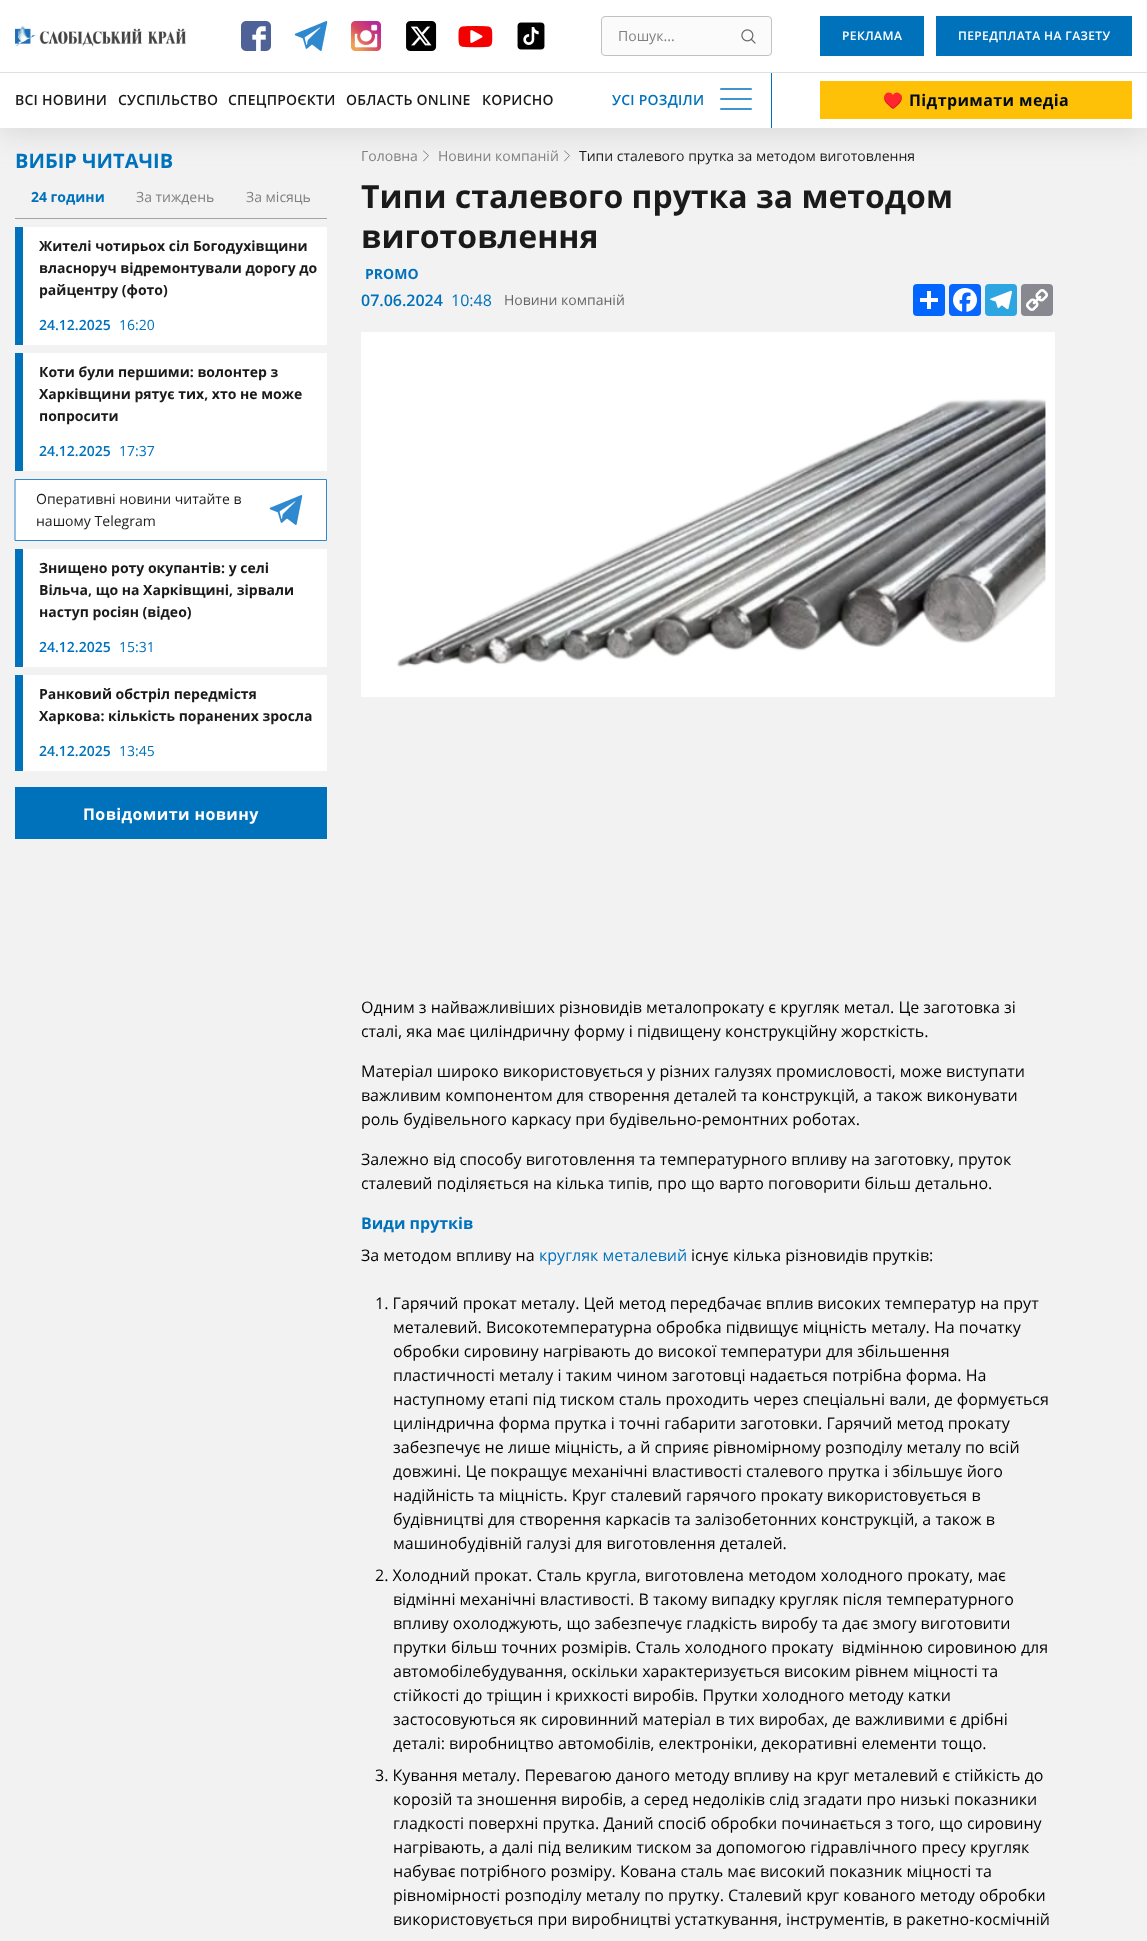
<!DOCTYPE html>
<meta charset="utf-8">
<style>body { margin: 0 } canvas { display: block }</style>
<canvas id="canvas" width="1147" height="1941"></canvas>
<img id="img1" src="images/1.png" hidden>
<img id="img2" src="images/2.png" hidden>
<img id="img3" src="images/3.png" hidden>
<img id="img4" src="images/4.png" hidden>
<img id="img5" src="images/5.png" hidden>
<img id="img6" src="images/6.png" hidden>
<img id="img7" src="images/7.png" hidden>
<img id="img8" src="images/8.png" hidden>
<img id="img9" src="images/9.png" hidden>
<img id="img10" src="images/10.png" hidden>
<img id="img11" src="images/11.png" hidden>
<img id="img12" src="images/12.png" hidden>
<script>
window.onload = function () {
    const canvas = document.getElementById('canvas');
    const context = canvas.getContext('2d');
    context.miterLimit = 4;
    context.fontKerning = 'normal';

    context.fillStyle = 'rgb(242, 242, 242)';
    context.fillRect(0, 0, 1147, 1941);
    context.beginPath();
    context.moveTo(423.5, 161);
    context.lineTo(428.5, 155.5);
    context.lineTo(423.5, 151);
    context.strokeStyle = 'rgb(128, 128, 128)';
    context.lineCap = 'round';
    context.lineJoin = 'round';
    context.stroke();
    context.beginPath();
    context.moveTo(564.5, 161);
    context.lineTo(569.5, 155.5);
    context.lineTo(564.5, 151);
    context.stroke();
    context.fillStyle = 'rgba(162, 162, 162, 0.34)';
    context.filter = 'blur(15px)';
    context.beginPath();
    context.rect(0, 4, 1147, 128);
    context.fill();
    context.filter = 'none';
    context.fillStyle = 'rgb(255, 255, 255)';
    context.fillRect(0, 0, 1147, 128);
    context.drawImage(document.getElementById('img1'), 15, 25, 171, 22);
    context.drawImage(document.getElementById('img2'), 241, 21, 30, 30);
    context.drawImage(document.getElementById('img3'), 294, 21, 34, 30);
    context.drawImage(document.getElementById('img4'), 351, 21, 30, 30);
    context.drawImage(document.getElementById('img5'), 406, 21, 31, 30);
    context.drawImage(document.getElementById('img6'), 458, 26, 35, 22);
    context.drawImage(document.getElementById('img7'), 517, 22, 28, 28);
    context.fillStyle = 'rgb(251, 251, 251)';
    context.beginPath();
    context.roundRect(601.5, 16.5, 170, 39, 3.5);
    context.fill();
    context.strokeStyle = 'rgb(194, 194, 194)';
    context.lineJoin = 'miter';
    context.stroke();
    context.drawImage(document.getElementById('img8'), 741, 29, 15, 15);
    context.fillStyle = 'rgb(0, 114, 188)';
    context.fillRect(820, 16, 104, 40);
    context.fillRect(936, 16, 196, 40);
    context.fillRect(771, 72, 1, 56);
    context.beginPath();
    context.moveTo(721, 89);
    context.lineTo(751, 89);
    context.moveTo(721, 99);
    context.lineTo(751, 99);
    context.moveTo(721, 109);
    context.lineTo(751, 109);
    context.strokeStyle = 'rgb(0, 114, 188)';
    context.lineWidth = 1.5;
    context.lineCap = 'square';
    context.lineJoin = 'round';
    context.stroke();
    context.fillStyle = 'rgb(255, 193, 7)';
    context.fillRect(820, 81, 312, 38);
    context.fillStyle = 'rgb(224, 224, 224)';
    context.fillRect(0, 72, 1147, 1);
    context.fillStyle = 'rgb(163, 163, 163)';
    context.fillRect(15, 218, 312, 1);
    context.fillStyle = 'rgb(255, 255, 255)';
    context.fillRect(23, 227, 304, 118);
    context.fillStyle = 'rgb(0, 114, 188)';
    context.fillRect(15, 227, 8, 118);
    context.fillStyle = 'rgb(255, 255, 255)';
    context.fillRect(23, 353, 304, 118);
    context.fillStyle = 'rgb(0, 114, 188)';
    context.fillRect(15, 353, 8, 118);
    context.fillStyle = 'rgb(255, 255, 255)';
    context.beginPath();
    context.rect(15.5, 479.5, 311, 61);
    context.fill();
    context.strokeStyle = 'rgb(47, 137, 206)';
    context.lineWidth = 1;
    context.lineJoin = 'miter';
    context.stroke();
    context.drawImage(document.getElementById('img3'), 269, 495, 34, 30);
    context.fillRect(23, 549, 304, 118);
    context.fillStyle = 'rgb(0, 114, 188)';
    context.fillRect(15, 549, 8, 118);
    context.fillStyle = 'rgb(255, 255, 255)';
    context.fillRect(23, 675, 304, 96);
    context.fillStyle = 'rgb(0, 114, 188)';
    context.fillRect(15, 675, 8, 96);
    context.fillRect(15, 787, 312, 52);
    context.fillStyle = 'rgb(1, 102, 255)';
    context.beginPath();
    context.roundRect(913, 284, 32, 32, 4);
    context.fill();
    context.fillStyle = 'rgb(255, 255, 255)';
    context.fillRect(927, 291, 4, 18);
    context.fillRect(920, 298, 18, 4);
    context.fillStyle = 'rgb(8, 102, 255)';
    context.beginPath();
    context.roundRect(949, 284, 32, 32, 4);
    context.fill();
    context.drawImage(document.getElementById('img9'), 953, 288, 24, 24);
    context.fillStyle = 'rgb(44, 165, 224)';
    context.beginPath();
    context.roundRect(985, 284, 32, 32, 4);
    context.fill();
    context.drawImage(document.getElementById('img10'), 990, 290, 22, 20);
    context.fillStyle = 'rgb(136, 137, 144)';
    context.beginPath();
    context.roundRect(1021, 284, 32, 32, 4);
    context.fill();
    context.drawImage(document.getElementById('img11'), 1026, 289, 22, 22);
    context.drawImage(document.getElementById('img12'), 361, 332, 694, 365);
    context.font = '14px Open Sans';
    context.fillStyle = 'rgb(128, 128, 128)';
    context.fillText('Пошук...', 618, 41);
    context.letterSpacing = '0.4px';
    context.font = '600 12px Open Sans';
    context.fillStyle = 'rgb(255, 255, 255)';
    context.fillText('РЕКЛАМА', 842, 40);
    context.fillText('ПЕРЕДПЛАТА НА ГАЗЕТУ', 958, 40);
    context.letterSpacing = '0.25px';
    context.font = '600 14px Open Sans';
    context.fillStyle = 'rgb(26, 26, 26)';
    context.fillText('ВСІ НОВИНИ', 15, 105);
    context.fillText('СУСПІЛЬСТВО', 118, 105);
    context.fillText('СПЕЦПРОЄКТИ', 228, 105);
    context.fillText('ОБЛАСТЬ ONLINE', 346, 105);
    context.fillText('КОРИСНО', 482, 105);
    context.fillStyle = 'rgb(0, 114, 188)';
    context.fillText('УСІ РОЗДІЛИ', 612, 105);
    context.letterSpacing = '0.4px';
    context.font = 'bold 16px Noto Color Emoji';
    context.fillStyle = 'rgb(0, 11, 19)';
    context.fillText('♥️', 883, 106);
    context.font = 'bold 16px Open Sans';
    context.fillText('Підтримати медіа', 909, 106);
    context.letterSpacing = '0px';
    context.font = 'bold 20px Open Sans';
    context.fillStyle = 'rgb(0, 114, 188)';
    context.fillText('ВИБІР ЧИТАЧІВ', 15, 168);
    context.font = 'bold 14px Open Sans';
    context.fillText('24 години', 31, 202);
    context.font = '14px Open Sans';
    context.fillStyle = 'rgb(128, 128, 128)';
    context.fillText('За тиждень', 136, 202);
    context.fillText('За місяць', 246, 202);
    context.font = 'bold 14px Open Sans';
    context.fillStyle = 'rgb(26, 26, 26)';
    context.fillText('Жителі чотирьох сіл Богодухівщини', 39, 251);
    context.fillText('власноруч відремонтували дорогу до', 39, 273);
    context.fillText('райцентру (фото)', 39, 295);
    context.font = '600 14px Open Sans';
    context.fillStyle = 'rgb(0, 114, 188)';
    context.fillText('24.12.2025', 39, 330);
    context.font = '14px Open Sans';
    context.fillText('16:20', 119, 330);
    context.font = 'bold 14px Open Sans';
    context.fillStyle = 'rgb(26, 26, 26)';
    context.fillText('Коти були першими: волонтер з', 39, 377);
    context.fillText('Харківщини рятує тих, хто не може', 39, 399);
    context.fillText('попросити', 39, 421);
    context.font = '600 14px Open Sans';
    context.fillStyle = 'rgb(0, 114, 188)';
    context.fillText('24.12.2025', 39, 456);
    context.font = '14px Open Sans';
    context.fillText('17:37', 119, 456);
    context.fillStyle = 'rgb(26, 26, 26)';
    context.fillText('Оперативні новини читайте в', 36, 504);
    context.fillText('нашому Telegram', 36, 526);
    context.font = 'bold 14px Open Sans';
    context.fillText('Знищено роту окупантів: у селі', 39, 573);
    context.fillText('Вільча, що на Харківщині, зірвали', 39, 595);
    context.fillText('наступ росіян (відео)', 39, 617);
    context.font = '600 14px Open Sans';
    context.fillStyle = 'rgb(0, 114, 188)';
    context.fillText('24.12.2025', 39, 652);
    context.font = '14px Open Sans';
    context.fillText('15:31', 119, 652);
    context.font = 'bold 14px Open Sans';
    context.fillStyle = 'rgb(26, 26, 26)';
    context.fillText('Ранковий обстріл передмістя', 39, 699);
    context.fillText('Харкова: кількість поранених зросла', 39, 721);
    context.font = '600 14px Open Sans';
    context.fillStyle = 'rgb(0, 114, 188)';
    context.fillText('24.12.2025', 39, 756);
    context.font = '14px Open Sans';
    context.fillText('13:45', 119, 756);
    context.letterSpacing = '0.4px';
    context.font = 'bold 16px Open Sans';
    context.fillStyle = 'rgb(255, 255, 255)';
    context.fillText('Повідомити новину', 83, 820);
    context.letterSpacing = '0px';
    context.font = '14px Open Sans';
    context.fillStyle = 'rgb(128, 128, 128)';
    context.fillText('Головна', 361, 161);
    context.fillText('Новини компаній', 438, 161);
    context.fillStyle = 'rgb(26, 26, 26)';
    context.fillText('Типи сталевого прутка за методом виготовлення', 579, 161);
    context.font = 'bold 32px Open Sans';
    context.fillText('Типи сталевого прутка за методом', 361, 208);
    context.fillText('виготовлення', 361, 248);
    context.font = 'bold 14px Open Sans';
    context.fillStyle = 'rgb(0, 114, 188)';
    context.fillText('PROMO', 365, 279);
    context.font = '600 16px Open Sans';
    context.fillText('07.06.2024', 361, 306);
    context.font = '16px Open Sans';
    context.fillText('10:48', 451, 306);
    context.font = '14px Open Sans';
    context.fillStyle = 'rgb(102, 102, 102)';
    context.fillText('Новини компаній', 504, 305);
    context.font = '16px Open Sans';
    context.fillStyle = 'rgb(0, 0, 0)';
    context.fillText('Одним з найважливіших різновидів металопрокату є кругляк метал. Це заготовка зі', 361, 1013);
    context.fillText('сталі, яка має циліндричну форму і підвищену конструкційну жорсткість.', 361, 1037);
    context.fillText('Матеріал широко використовується у різних галузях промисловості, може виступати', 361, 1077);
    context.fillText('важливим компонентом для створення деталей та конструкцій, а також виконувати', 361, 1101);
    context.fillText('роль будівельного каркасу при будівельно-ремонтних роботах.', 361, 1125);
    context.fillText('Залежно від способу виготовлення та температурного впливу на заготовку, пруток', 361, 1165);
    context.fillText('сталевий поділяється на кілька типів, про що варто поговорити більш детально.', 361, 1189);
    context.font = 'bold 16px Open Sans';
    context.fillStyle = 'rgb(0, 114, 188)';
    context.fillText('Види прутків', 361, 1229);
    context.font = '16px Open Sans';
    context.fillStyle = 'rgb(0, 0, 0)';
    context.fillText('За методом впливу на', 361, 1261);
    context.fillStyle = 'rgb(0, 114, 188)';
    context.fillText('кругляк металевий', 539, 1261);
    context.fillStyle = 'rgb(0, 0, 0)';
    context.fillText('існує кілька різновидів прутків:', 691, 1261);
    context.fillText('1. Гарячий прокат металу. Цей метод передбачає вплив високих температур на прут', 375, 1309);
    context.fillText('металевий. Високотемпературна обробка підвищує міцність металу. На початку', 393, 1333);
    context.fillText('обробки сировину нагрівають до високої температури для збільшення', 393, 1357);
    context.fillText('пластичності металу і таким чином заготовці надається потрібна форма. На', 393, 1381);
    context.fillText('наступному етапі під тиском сталь проходить через спеціальні вали, де формується', 393, 1405);
    context.fillText('циліндрична форма прутка і точні габарити заготовки. Гарячий метод прокату', 393, 1429);
    context.fillText('забезпечує не лише міцність, а й сприяє рівномірному розподілу металу по всій', 393, 1453);
    context.fillText('довжині. Це покращує механічні властивості сталевого прутка і збільшує його', 393, 1477);
    context.fillText('надійність та міцність. Круг сталевий гарячого прокату використовується в', 393, 1501);
    context.fillText('будівництві для створення каркасів та залізобетонних конструкцій, а також в', 393, 1525);
    context.fillText('машинобудівній галузі для виготовлення деталей.', 393, 1549);
    context.fillText('2. Холодний прокат. Сталь кругла, виготовлена методом холодного прокату, має', 375, 1581);
    context.fillText('відмінні механічні властивості. В такому випадку кругляк після температурного', 393, 1605);
    context.fillText('впливу охолоджують, що забезпечує гладкість виробу та дає змогу виготовити', 393, 1629);
    context.fillText('прутки більш точних розмірів. Сталь холодного прокату  відмінною сировиною для', 393, 1653);
    context.fillText('автомобілебудування, оскільки характеризується високим рівнем міцності та', 393, 1677);
    context.fillText('стійкості до тріщин і крихкості виробів. Прутки холодного методу катки', 393, 1701);
    context.fillText('застосовуються як сировинний матеріал в тих виробах, де важливими є дрібні', 393, 1725);
    context.fillText('деталі: виробництво автомобілів, електроніки, декоративні елементи тощо.', 393, 1749);
    context.fillText('3. Кування металу. Перевагою даного методу впливу на круг металевий є стійкість до', 375, 1781);
    context.fillText('корозій та зношення виробів, а серед недоліків слід згадати про низькі показники', 393, 1805);
    context.fillText('гладкості поверхні прутка. Даний спосіб обробки починається з того, що сировину', 393, 1829);
    context.fillText('нагрівають, а далі під великим тиском за допомогою гідравлічного пресу кругляк', 393, 1853);
    context.fillText('набуває потрібного розміру. Кована сталь має високий показник міцності та', 393, 1877);
    context.fillText('рівномірності розподілу металу по прутку. Сталевий круг кованого методу обробки', 393, 1901);
    context.fillText('використовується при виробництві устаткування, інструментів, в ракетно-космічній', 393, 1925);
};
</script>
